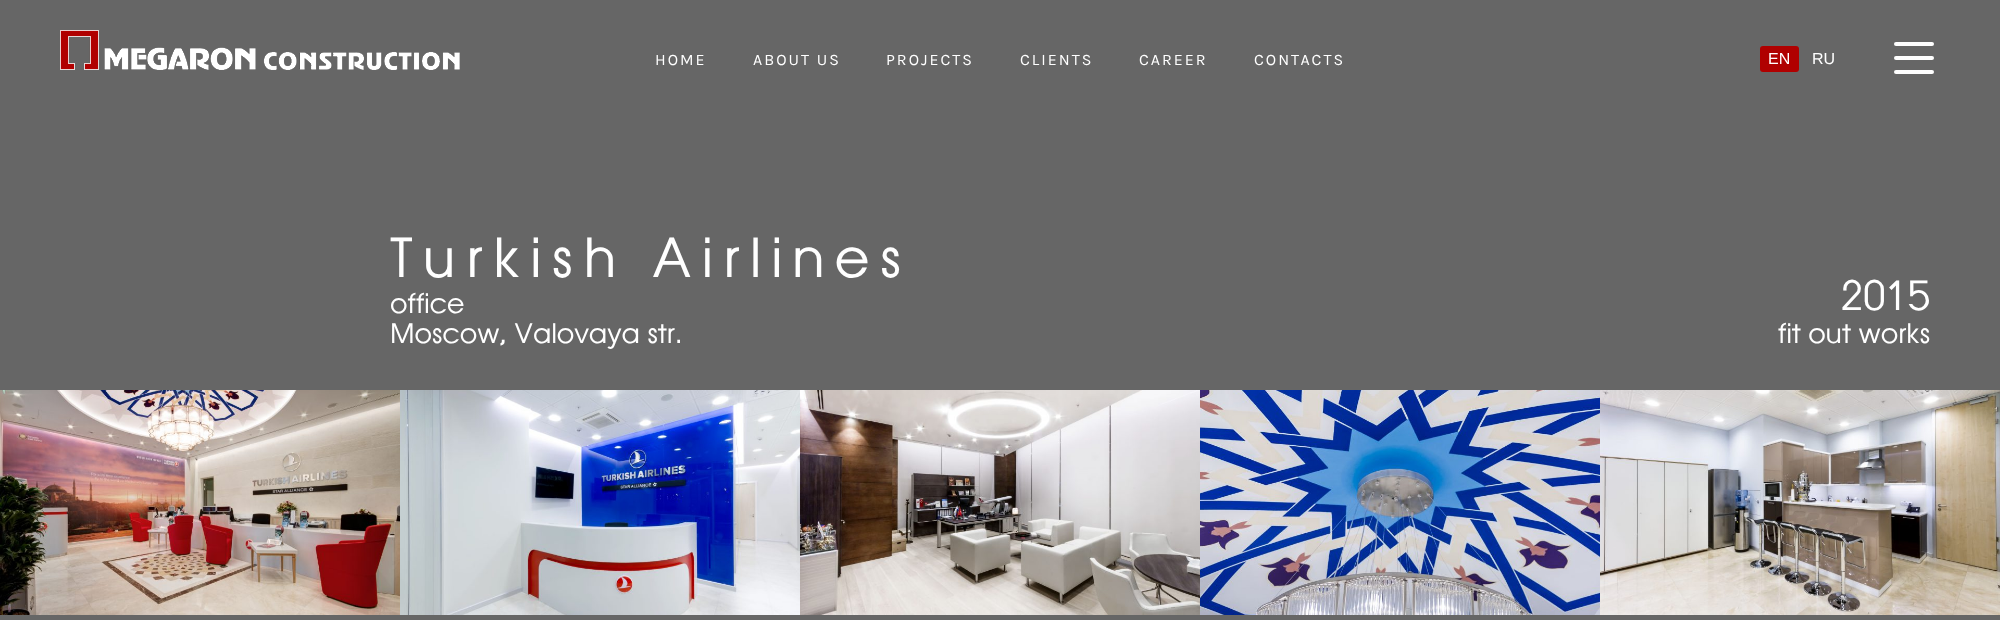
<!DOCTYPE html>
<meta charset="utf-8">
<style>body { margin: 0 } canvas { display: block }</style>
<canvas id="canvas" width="2000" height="620"></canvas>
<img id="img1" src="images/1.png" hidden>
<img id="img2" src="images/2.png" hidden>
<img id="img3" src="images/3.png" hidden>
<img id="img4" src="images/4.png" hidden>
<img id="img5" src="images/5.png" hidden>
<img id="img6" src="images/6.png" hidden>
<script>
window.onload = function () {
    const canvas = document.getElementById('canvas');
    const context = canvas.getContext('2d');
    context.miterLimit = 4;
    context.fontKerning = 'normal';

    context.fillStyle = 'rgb(102, 102, 102)';
    context.fillRect(0, 0, 2000, 620);
    context.drawImage(document.getElementById('img1'), 60, 30, 400, 40);
    context.fillStyle = 'rgb(176, 0, 0)';
    context.beginPath();
    context.roundRect(1760, 46, 39, 26, 3);
    context.fill();
    context.fillStyle = 'rgb(255, 255, 255)';
    context.beginPath();
    context.roundRect(1894, 42, 40, 4, 2);
    context.fill();
    context.beginPath();
    context.roundRect(1894, 56, 40, 4, 2);
    context.fill();
    context.beginPath();
    context.roundRect(1894, 70, 40, 4, 2);
    context.fill();
    context.drawImage(document.getElementById('img2'), 0, 390, 400, 225);
    context.drawImage(document.getElementById('img3'), 400, 390, 400, 225);
    context.drawImage(document.getElementById('img4'), 800, 390, 400, 225);
    context.drawImage(document.getElementById('img5'), 1200, 390, 400, 225);
    context.drawImage(document.getElementById('img6'), 1600, 390, 400, 225);
    context.letterSpacing = '2px';
    context.font = '16px Karla';
    context.fillText('HOME', 655, 65);
    context.fillText('ABOUT US', 753, 65);
    context.fillText('PROJECTS', 886, 65);
    context.fillText('CLIENTS', 1020, 65);
    context.fillText('CAREER', 1139, 65);
    context.fillText('CONTACTS', 1254, 65);
    context.letterSpacing = '0px';
    context.font = '16px Liberation Sans';
    context.fillText('EN', 1768, 64);
    context.fillText('RU', 1812, 64);
    context.letterSpacing = '10.7px';
    context.font = '53.25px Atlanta';
    context.fillText('Turkish Airlines', 390, 277);
    context.letterSpacing = '0px';
    context.font = '26.75px Atlanta';
    context.fillText('office', 390, 313);
    context.fillText('Moscow, Valovaya str.', 390, 343);
    context.font = '40px Atlanta';
    context.fillText('2015', 1841, 310);
    context.font = '26.75px Atlanta';
    context.fillText('fit out works', 1778, 343);
};
</script>
